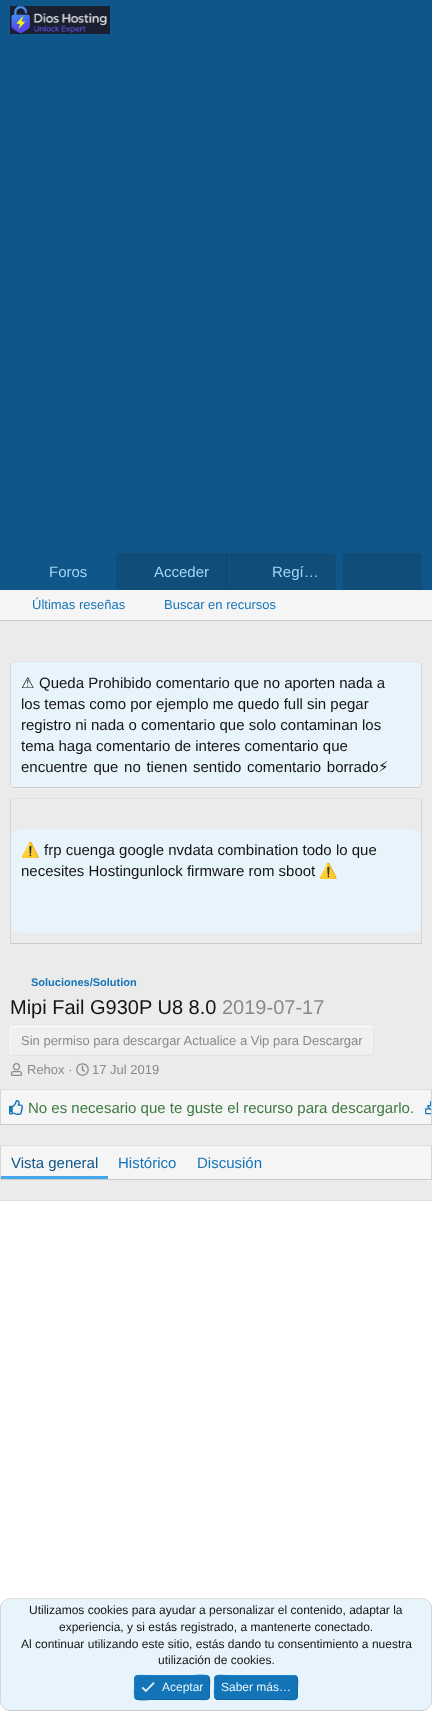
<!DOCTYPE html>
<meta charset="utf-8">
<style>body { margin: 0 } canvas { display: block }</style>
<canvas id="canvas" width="432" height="1711"></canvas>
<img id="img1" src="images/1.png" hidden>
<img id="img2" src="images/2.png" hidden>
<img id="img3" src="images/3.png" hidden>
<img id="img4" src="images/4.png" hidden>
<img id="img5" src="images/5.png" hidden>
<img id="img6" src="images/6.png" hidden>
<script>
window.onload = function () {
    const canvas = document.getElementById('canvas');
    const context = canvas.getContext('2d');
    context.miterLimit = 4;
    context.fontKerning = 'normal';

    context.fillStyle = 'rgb(235, 235, 235)';
    context.fillRect(0, 0, 432, 1711);
    context.fillStyle = 'rgb(15, 87, 138)';
    context.fillRect(0, 0, 432, 590);
    context.drawImage(document.getElementById('img1'), 10, 6, 100, 28);
    context.fillStyle = 'rgb(16, 77, 120)';
    context.beginPath();
    context.roundRect(116, 553, 220, 37, [4, 4, 0, 0]);
    context.fill();
    context.fillStyle = 'rgb(17, 68, 105)';
    context.fillRect(226, 553, 1, 37);
    context.fillStyle = 'rgb(16, 77, 120)';
    context.beginPath();
    context.roundRect(343, 553, 79, 37, [4, 4, 0, 0]);
    context.fill();
    context.fillStyle = 'rgb(245, 245, 245)';
    context.fillRect(0, 590, 432, 30);
    context.fillStyle = 'rgb(204, 204, 204)';
    context.fillRect(0, 620, 432, 1);
    context.fillStyle = 'rgb(232, 244, 252)';
    context.beginPath();
    context.roundRect(10, 661, 412, 127, 4);
    context.fill();
    context.beginPath();
    context.moveTo(11.5, 662.5);
    context.lineTo(14, 661.5);
    context.lineTo(418, 661.5);
    context.lineTo(420.5, 662.5);
    context.strokeStyle = 'rgb(224, 224, 224)';
    context.stroke();
    context.beginPath();
    context.moveTo(420.5, 662.5);
    context.bezierCurveTo(421, 663, 421.5, 664, 421.5, 665);
    context.lineTo(421.5, 784);
    context.bezierCurveTo(421.5, 785, 421, 786, 420.5, 786.5);
    context.strokeStyle = 'rgb(214, 214, 214)';
    context.stroke();
    context.beginPath();
    context.moveTo(420.5, 786.5);
    context.lineTo(418, 787.5);
    context.lineTo(14, 787.5);
    context.lineTo(11.5, 786.5);
    context.strokeStyle = 'rgb(204, 204, 204)';
    context.stroke();
    context.beginPath();
    context.moveTo(11.5, 786.5);
    context.bezierCurveTo(11, 786, 10.5, 785, 10.5, 784);
    context.lineTo(10.5, 665);
    context.bezierCurveTo(10.5, 664, 11, 663, 11.5, 662.5);
    context.strokeStyle = 'rgb(214, 214, 214)';
    context.stroke();
    context.fillStyle = 'rgb(224, 224, 224)';
    context.fillRect(10, 798, 412, 1);
    context.fillStyle = 'rgb(214, 214, 214)';
    context.fillRect(421, 798, 1, 146);
    context.fillStyle = 'rgb(204, 204, 204)';
    context.fillRect(10, 943, 412, 1);
    context.fillStyle = 'rgb(214, 214, 214)';
    context.fillRect(10, 798, 1, 146);
    context.fillStyle = 'rgb(232, 244, 252)';
    context.beginPath();
    context.roundRect(11, 829, 410, 104, 10);
    context.fill();
    context.fillStyle = 'rgb(240, 240, 240)';
    context.beginPath();
    context.roundRect(10, 1026, 364, 30, 4);
    context.fill();
    context.beginPath();
    context.moveTo(372.5, 1027.5);
    context.bezierCurveTo(374.5, 1029.5, 374, 1052, 373, 1054);
    context.bezierCurveTo(372.5, 1055, 371, 1055.5, 370, 1055.5);
    context.lineTo(13.5, 1055.5);
    context.lineTo(11.5, 1054.5);
    context.strokeStyle = 'rgb(227, 227, 227)';
    context.stroke();
    context.beginPath();
    context.moveTo(11.5, 1054.5);
    context.bezierCurveTo(9.5, 1052.5, 10, 1030, 11, 1028);
    context.bezierCurveTo(11.5, 1027, 13, 1026.5, 14, 1026.5);
    context.lineTo(370.5, 1026.5);
    context.lineTo(372.5, 1027.5);
    context.strokeStyle = 'rgb(252, 252, 252)';
    context.stroke();
    context.drawImage(document.getElementById('img2'), 10, 1063, 13, 13);
    context.drawImage(document.getElementById('img3'), 76, 1063, 13, 13);
    context.fillStyle = 'rgb(245, 245, 245)';
    context.fillRect(1, 1090, 430, 34);
    context.fillStyle = 'rgb(224, 224, 224)';
    context.fillRect(0, 1089, 432, 1);
    context.fillStyle = 'rgb(214, 214, 214)';
    context.fillRect(431, 1089, 1, 36);
    context.fillStyle = 'rgb(204, 204, 204)';
    context.fillRect(0, 1124, 432, 1);
    context.fillStyle = 'rgb(214, 214, 214)';
    context.fillRect(0, 1089, 1, 36);
    context.drawImage(document.getElementById('img4'), 9, 1100, 14, 15);
    context.drawImage(document.getElementById('img5'), 425, 1100, 6, 15);
    context.fillStyle = 'rgb(245, 245, 245)';
    context.fillRect(1, 1146, 430, 33);
    context.fillStyle = 'rgb(224, 224, 224)';
    context.fillRect(0, 1145, 432, 1);
    context.fillStyle = 'rgb(214, 214, 214)';
    context.fillRect(431, 1145, 1, 35);
    context.fillStyle = 'rgb(204, 204, 204)';
    context.fillRect(0, 1179, 432, 1);
    context.fillStyle = 'rgb(214, 214, 214)';
    context.fillRect(0, 1145, 1, 35);
    context.fillStyle = 'rgb(71, 167, 235)';
    context.fillRect(1, 1176, 107, 3);
    context.fillStyle = 'rgb(255, 255, 255)';
    context.fillRect(0, 1201, 432, 510);
    context.fillStyle = 'rgb(224, 224, 224)';
    context.fillRect(0, 1200, 432, 1);
    context.fillStyle = 'rgb(232, 244, 252)';
    context.beginPath();
    context.roundRect(0, 1598, 432, 113, 10);
    context.fill();
    context.beginPath();
    context.moveTo(3.5, 1601.5);
    context.bezierCurveTo(5, 1599.5, 7.5, 1598.5, 10, 1598.5);
    context.lineTo(422, 1598.5);
    context.bezierCurveTo(424.5, 1598.5, 427, 1599.5, 428.5, 1601.5);
    context.strokeStyle = 'rgb(224, 224, 224)';
    context.stroke();
    context.beginPath();
    context.moveTo(428.5, 1601.5);
    context.bezierCurveTo(430.5, 1603, 431.5, 1605.5, 431.5, 1608);
    context.lineTo(431.5, 1701);
    context.bezierCurveTo(431.5, 1703.5, 430.5, 1706, 428.5, 1707.5);
    context.strokeStyle = 'rgb(214, 214, 214)';
    context.stroke();
    context.beginPath();
    context.moveTo(428.5, 1707.5);
    context.bezierCurveTo(427, 1709.5, 424.5, 1710.5, 422, 1710.5);
    context.lineTo(10, 1710.5);
    context.bezierCurveTo(7.5, 1710.5, 5, 1709.5, 3.5, 1707.5);
    context.strokeStyle = 'rgb(204, 204, 204)';
    context.stroke();
    context.beginPath();
    context.moveTo(3.5, 1707.5);
    context.bezierCurveTo(1.5, 1706, 0.5, 1703.5, 0.5, 1701);
    context.lineTo(0.5, 1608);
    context.bezierCurveTo(0.5, 1605.5, 1.5, 1603, 3.5, 1601.5);
    context.strokeStyle = 'rgb(214, 214, 214)';
    context.stroke();
    context.fillStyle = 'rgb(20, 116, 184)';
    context.beginPath();
    context.roundRect(134, 1675, 76, 25, 4);
    context.fill();
    context.beginPath();
    context.moveTo(208.5, 1676.5);
    context.bezierCurveTo(210.5, 1679, 209.5, 1685, 209.5, 1687.5);
    context.bezierCurveTo(209.5, 1702, 210.5, 1699.5, 194.5, 1699.5);
    context.lineTo(149.5, 1699.5);
    context.bezierCurveTo(149, 1699.5, 138.5, 1701, 135.5, 1698.5);
    context.strokeStyle = 'rgb(18, 101, 161)';
    context.stroke();
    context.beginPath();
    context.moveTo(135.5, 1698.5);
    context.bezierCurveTo(133.5, 1696, 134.5, 1690, 134.5, 1687.5);
    context.bezierCurveTo(134.5, 1673, 133.5, 1675.5, 149.5, 1675.5);
    context.lineTo(194.5, 1675.5);
    context.bezierCurveTo(195, 1675.5, 205.5, 1674, 208.5, 1676.5);
    context.strokeStyle = 'rgb(23, 130, 207)';
    context.stroke();
    context.drawImage(document.getElementById('img6'), 141, 1682, 14, 11);
    context.beginPath();
    context.roundRect(214, 1675, 84, 25, 4);
    context.fill();
    context.beginPath();
    context.moveTo(296.5, 1676.5);
    context.bezierCurveTo(298.5, 1679, 297.5, 1685, 297.5, 1687.5);
    context.bezierCurveTo(297.5, 1702.5, 298, 1699.5, 281.5, 1699.5);
    context.lineTo(218, 1699.5);
    context.lineTo(215.5, 1698.5);
    context.strokeStyle = 'rgb(18, 101, 161)';
    context.stroke();
    context.beginPath();
    context.moveTo(215.5, 1698.5);
    context.bezierCurveTo(213.5, 1696, 214.5, 1690, 214.5, 1687.5);
    context.bezierCurveTo(214.5, 1672.5, 214, 1675.5, 230.5, 1675.5);
    context.lineTo(294, 1675.5);
    context.lineTo(296.5, 1676.5);
    context.strokeStyle = 'rgb(23, 130, 207)';
    context.stroke();
    context.font = '15px Liberation Sans';
    context.fillStyle = 'rgb(163, 212, 245)';
    context.fillText('Foros', 49, 577);
    context.fillText('Acceder', 154, 577);
    context.fillText('Regí…', 272, 577);
    context.font = '13px Liberation Sans';
    context.fillStyle = 'rgb(20, 116, 184)';
    context.fillText('Últimas reseñas', 32, 609);
    context.fillText('Buscar en recursos', 164, 609);
    context.font = '15px DejaVu Sans';
    context.fillStyle = 'rgb(20, 20, 20)';
    context.fillText('⚠', 21, 688);
    context.font = '15px Liberation Sans';
    context.fillText('Queda Prohibido comentario que no aporten nada a', 39, 688);
    context.fillText('los temas como por ejemplo me quedo full sin pegar', 21, 709);
    context.fillText('registro ni nada o comentario que solo contaminan los', 21, 730);
    context.fillText('tema haga comentario de interes comentario que', 21, 751);
    context.wordSpacing = '1.5px';
    context.fillText('encuentre que no tienen sentido comentario borrado', 21, 772);
    context.wordSpacing = '0px';
    context.font = '15px DejaVu Sans';
    context.fillText('⚡', 378, 772);
    context.font = '15px Noto Color Emoji';
    context.fillText('⚠️', 21, 855);
    context.font = '15px Liberation Sans';
    context.fillText('frp cuenga google nvdata combination todo lo que', 44, 855);
    context.fillText('necesites Hostingunlock firmware rom sboot', 21, 876);
    context.font = '15px Noto Color Emoji';
    context.fillText('⚠️', 319, 876);
    context.font = 'bold 11px Liberation Sans';
    context.fillStyle = 'rgb(20, 116, 184)';
    context.fillText('Soluciones/Solution', 31, 986);
    context.font = '20px Liberation Sans';
    context.fillStyle = 'rgb(20, 20, 20)';
    context.fillText('Mipi Fail G930P U8 8.0', 10, 1014);
    context.fillStyle = 'rgb(138, 138, 138)';
    context.fillText('2019-07-17', 222, 1014);
    context.font = '13px Liberation Sans';
    context.fillText('Sin permiso para descargar Actualice a Vip para Descargar', 21, 1045);
    context.fillText('Rehox ·', 27, 1074);
    context.fillText('17 Jul 2019', 92, 1074);
    context.font = '15px Liberation Sans';
    context.fillStyle = 'rgb(62, 122, 64)';
    context.fillText('No es necesario que te guste el recurso para descargarlo.', 28, 1113);
    context.fillStyle = 'rgb(15, 87, 138)';
    context.fillText('Vista general', 11, 1168);
    context.fillStyle = 'rgb(20, 116, 184)';
    context.fillText('Histórico', 118, 1168);
    context.fillText('Discusión', 197, 1168);
    context.font = '12px Liberation Sans';
    context.fillStyle = 'rgb(20, 20, 20)';
    context.fillText('Utilizamos cookies para ayudar a personalizar el contenido, adaptar la', 29, 1614);
    context.fillText('experiencia, y si estás registrado, a mantenerte conectado.', 59, 1631);
    context.fillText('Al continuar utilizando este sitio, estás dando tu consentimiento a nuestra', 21, 1648);
    context.fillText('utilización de cookies.', 158, 1664);
    context.fillStyle = 'rgb(232, 244, 252)';
    context.fillText('Aceptar', 162, 1691);
    context.fillText('Saber más…', 221, 1691);
};
</script>
